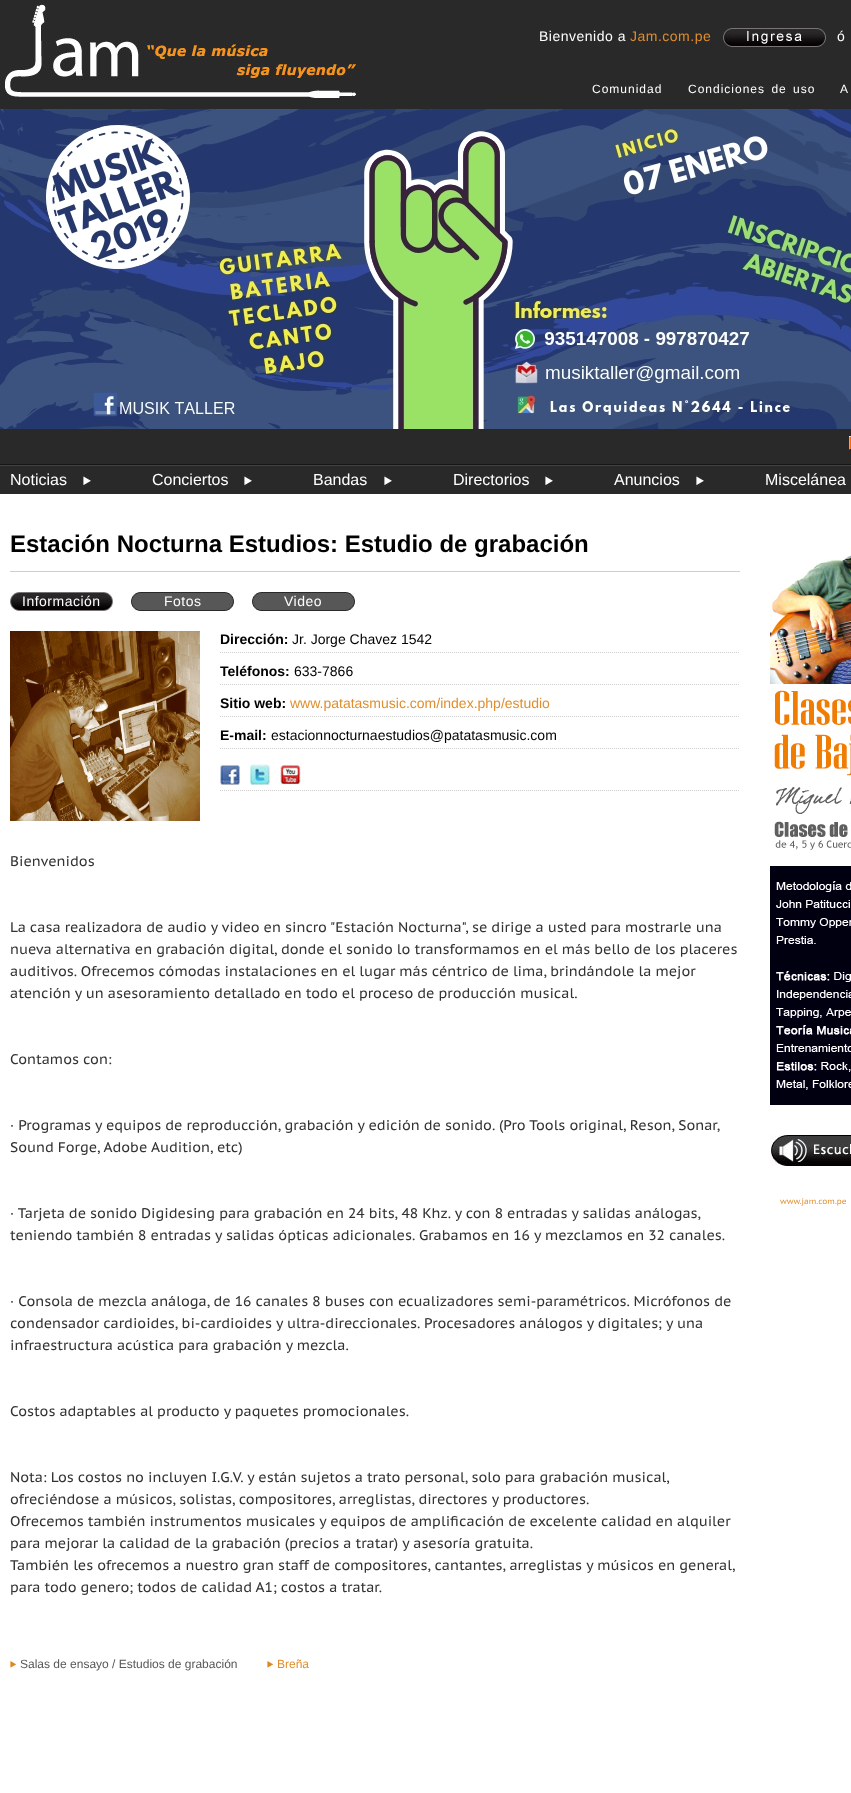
<!DOCTYPE html>
<meta charset="utf-8">
<style>body { margin: 0 } canvas { display: block }</style>
<canvas id="canvas" width="851" height="1793"></canvas>
<img id="img1" src="images/1.png" hidden>
<img id="img2" src="images/2.png" hidden>
<img id="img3" src="images/3.png" hidden>
<img id="img4" src="images/4.png" hidden>
<img id="img5" src="images/5.png" hidden>
<img id="img6" src="images/6.png" hidden>
<img id="img7" src="images/7.png" hidden>
<img id="img8" src="images/8.png" hidden>
<img id="img9" src="images/9.png" hidden>
<img id="img10" src="images/10.png" hidden>
<img id="img11" src="images/11.png" hidden>
<img id="img12" src="images/12.png" hidden>
<img id="img13" src="images/13.png" hidden>
<img id="img14" src="images/14.png" hidden>
<script>
window.onload = function () {
    const canvas = document.getElementById('canvas');
    const context = canvas.getContext('2d');
    context.miterLimit = 4;
    context.fontKerning = 'normal';

    context.fillStyle = 'rgb(42, 41, 41)';
    context.fillRect(0, 0, 851, 1793);
    context.fillStyle = 'rgb(23, 22, 22)';
    context.fillRect(0, 464, 851, 1);
    context.drawImage(document.getElementById('img1'), 0, 1, 360, 98);
    context.drawImage(document.getElementById('img2'), 723, 28, 103, 19);
    context.drawImage(document.getElementById('img3'), 0, 109, 851, 320);
    context.drawImage(document.getElementById('img4'), 849, 436, 2, 14);
    context.fillStyle = 'rgb(65, 65, 65)';
    context.fillRect(0, 465, 851, 1);
    context.drawImage(document.getElementById('img5'), 82, 473, 9, 14);
    context.drawImage(document.getElementById('img5'), 243, 473, 9, 14);
    context.drawImage(document.getElementById('img5'), 383, 473, 9, 14);
    context.drawImage(document.getElementById('img5'), 544, 473, 9, 14);
    context.drawImage(document.getElementById('img5'), 695, 473, 9, 14);
    context.fillStyle = 'rgb(255, 255, 255)';
    context.fillRect(0, 494, 851, 1299);
    context.fillStyle = 'rgb(206, 206, 206)';
    context.fillRect(10, 571, 730, 1);
    context.drawImage(document.getElementById('img6'), 10, 592, 103, 19);
    context.drawImage(document.getElementById('img7'), 131, 592, 103, 19);
    context.drawImage(document.getElementById('img7'), 252, 592, 103, 19);
    context.drawImage(document.getElementById('img8'), 10, 631, 190, 190);
    context.beginPath();
    context.moveTo(220, 652.5);
    context.lineTo(740, 652.5);
    context.strokeStyle = 'rgb(206, 206, 206)';
    context.setLineDash([1, 1]);
    context.stroke();
    context.beginPath();
    context.moveTo(220, 684.5);
    context.lineTo(740, 684.5);
    context.stroke();
    context.beginPath();
    context.moveTo(220, 716.5);
    context.lineTo(740, 716.5);
    context.stroke();
    context.beginPath();
    context.moveTo(220, 748.5);
    context.lineTo(740, 748.5);
    context.stroke();
    context.beginPath();
    context.moveTo(220, 790.5);
    context.lineTo(740, 790.5);
    context.stroke();
    context.drawImage(document.getElementById('img9'), 220, 764, 20, 21);
    context.drawImage(document.getElementById('img10'), 250, 764, 20, 21);
    context.drawImage(document.getElementById('img11'), 280, 764, 21, 21);
    context.drawImage(document.getElementById('img12'), 10, 1661, 6, 7);
    context.drawImage(document.getElementById('img12'), 267, 1661, 6, 7);
    context.drawImage(document.getElementById('img13'), 770, 555, 81, 550);
    context.drawImage(document.getElementById('img14'), 770, 1135, 81, 31);
    context.letterSpacing = '0.5px';
    context.font = '14px Liberation Sans';
    context.fillStyle = 'rgb(255, 255, 255)';
    context.fillText('Bienvenido a', 539, 41);
    context.fillStyle = 'rgb(223, 142, 45)';
    context.fillText('Jam.com.pe', 630, 41);
    context.fillStyle = 'rgb(255, 255, 255)';
    context.fillText('ó', 837, 41);
    context.letterSpacing = '1px';
    context.font = '12px Liberation Sans';
    context.fillText('Comunidad', 592, 93);
    context.wordSpacing = '2px';
    context.fillText('Condiciones de uso', 688, 93);
    context.wordSpacing = '0px';
    context.fillText('A', 840, 93);
    context.letterSpacing = '0px';
    context.font = '16px Liberation Sans';
    context.fillText('Noticias', 10, 485);
    context.fillText('Conciertos', 152, 485);
    context.fillText('Bandas', 313, 485);
    context.fillText('Directorios', 453, 485);
    context.fillText('Anuncios', 614, 485);
    context.fillText('Miscelánea', 765, 485);
    context.font = 'bold 24px Liberation Sans';
    context.fillStyle = 'rgb(0, 0, 0)';
    context.fillText('Estación Nocturna Estudios: Estudio de grabación', 10, 552);
    context.letterSpacing = '0.5px';
    context.font = '14px Liberation Sans';
    context.fillStyle = 'rgb(255, 255, 255)';
    context.fillText('Información', 22, 606);
    context.fillText('Fotos', 164, 606);
    context.fillText('Video', 284, 606);
    context.letterSpacing = '0px';
    context.font = 'bold 14px Liberation Sans';
    context.fillStyle = 'rgb(0, 0, 0)';
    context.fillText('Dirección:', 220, 644);
    context.font = '14px Liberation Sans';
    context.fillText('Jr. Jorge Chavez 1542', 292, 644);
    context.font = 'bold 14px Liberation Sans';
    context.fillText('Teléfonos:', 220, 676);
    context.font = '14px Liberation Sans';
    context.fillText('633-7866', 294, 676);
    context.font = 'bold 14px Liberation Sans';
    context.fillText('Sitio web:', 220, 708);
    context.font = '14px Liberation Sans';
    context.fillStyle = 'rgb(223, 142, 45)';
    context.fillText('www.patatasmusic.com/index.php/estudio', 290, 708);
    context.font = 'bold 14px Liberation Sans';
    context.fillStyle = 'rgb(0, 0, 0)';
    context.fillText('E-mail:', 220, 740);
    context.font = '14px Liberation Sans';
    context.fillText('estacionnocturnaestudios@patatasmusic.com', 271, 740);
    context.font = '14px PT Sans Caption';
    context.fillStyle = 'rgb(51, 51, 51)';
    context.fillText('Bienvenidos', 10, 866);
    context.fillText('La casa realizadora de audio y video en sincro "Estación Nocturna", se dirige a usted para mostrarle una', 10, 932);
    context.fillText('nueva alternativa en grabación digital, donde el sonido lo transformamos en el más bello de los placeres', 10, 954);
    context.fillText('auditivos. Ofrecemos cómodas instalaciones en el lugar más céntrico de lima, brindándole la mejor', 10, 976);
    context.fillText('atención y un asesoramiento detallado en todo el proceso de producción musical.', 10, 998);
    context.fillText('Contamos con:', 10, 1064);
    context.fillText('· Programas y equipos de reproducción, grabación y edición de sonido. (Pro Tools original, Reson, Sonar,', 10, 1130);
    context.fillText('Sound Forge, Adobe Audition, etc)', 10, 1152);
    context.fillText('· Tarjeta de sonido Digidesing para grabación en 24 bits, 48 Khz. y con 8 entradas y salidas análogas,', 10, 1218);
    context.fillText('teniendo también 8 entradas y salidas ópticas adicionales. Grabamos en 16 y mezclamos en 32 canales.', 10, 1240);
    context.fillText('· Consola de mezcla análoga, de 16 canales 8 buses con ecualizadores semi-paramétricos. Micrófonos de', 10, 1306);
    context.fillText('condensador cardioides, bi-cardioides y ultra-direccionales. Procesadores análogos y digitales; y una', 10, 1328);
    context.fillText('infraestructura acústica para grabación y mezcla.', 10, 1350);
    context.fillText('Costos adaptables al producto y paquetes promocionales.', 10, 1416);
    context.fillText('Nota: Los costos no incluyen I.G.V. y están sujetos a trato personal, solo para grabación musical,', 10, 1482);
    context.fillText('ofreciéndose a músicos, solistas, compositores, arreglistas, directores y productores.', 10, 1504);
    context.fillText('Ofrecemos también instrumentos musicales y equipos de amplificación de excelente calidad en alquiler', 10, 1526);
    context.fillText('para mejorar la calidad de la grabación (precios a tratar) y asesoría gratuita.', 10, 1548);
    context.fillText('También les ofrecemos a nuestro gran staff de compositores, cantantes, arreglistas y músicos en general,', 10, 1570);
    context.fillText('para todo genero; todos de calidad A1; costos a tratar.', 10, 1592);
    context.font = '12px Liberation Sans';
    context.fillStyle = 'rgb(87, 87, 87)';
    context.fillText('Salas de ensayo / Estudios de grabación', 20, 1668);
    context.fillStyle = 'rgb(223, 142, 45)';
    context.fillText('Breña', 277, 1668);
    context.font = '8px PT Sans Caption';
    context.fillText('www.jam.com.pe', 780, 1204);
};
</script>
